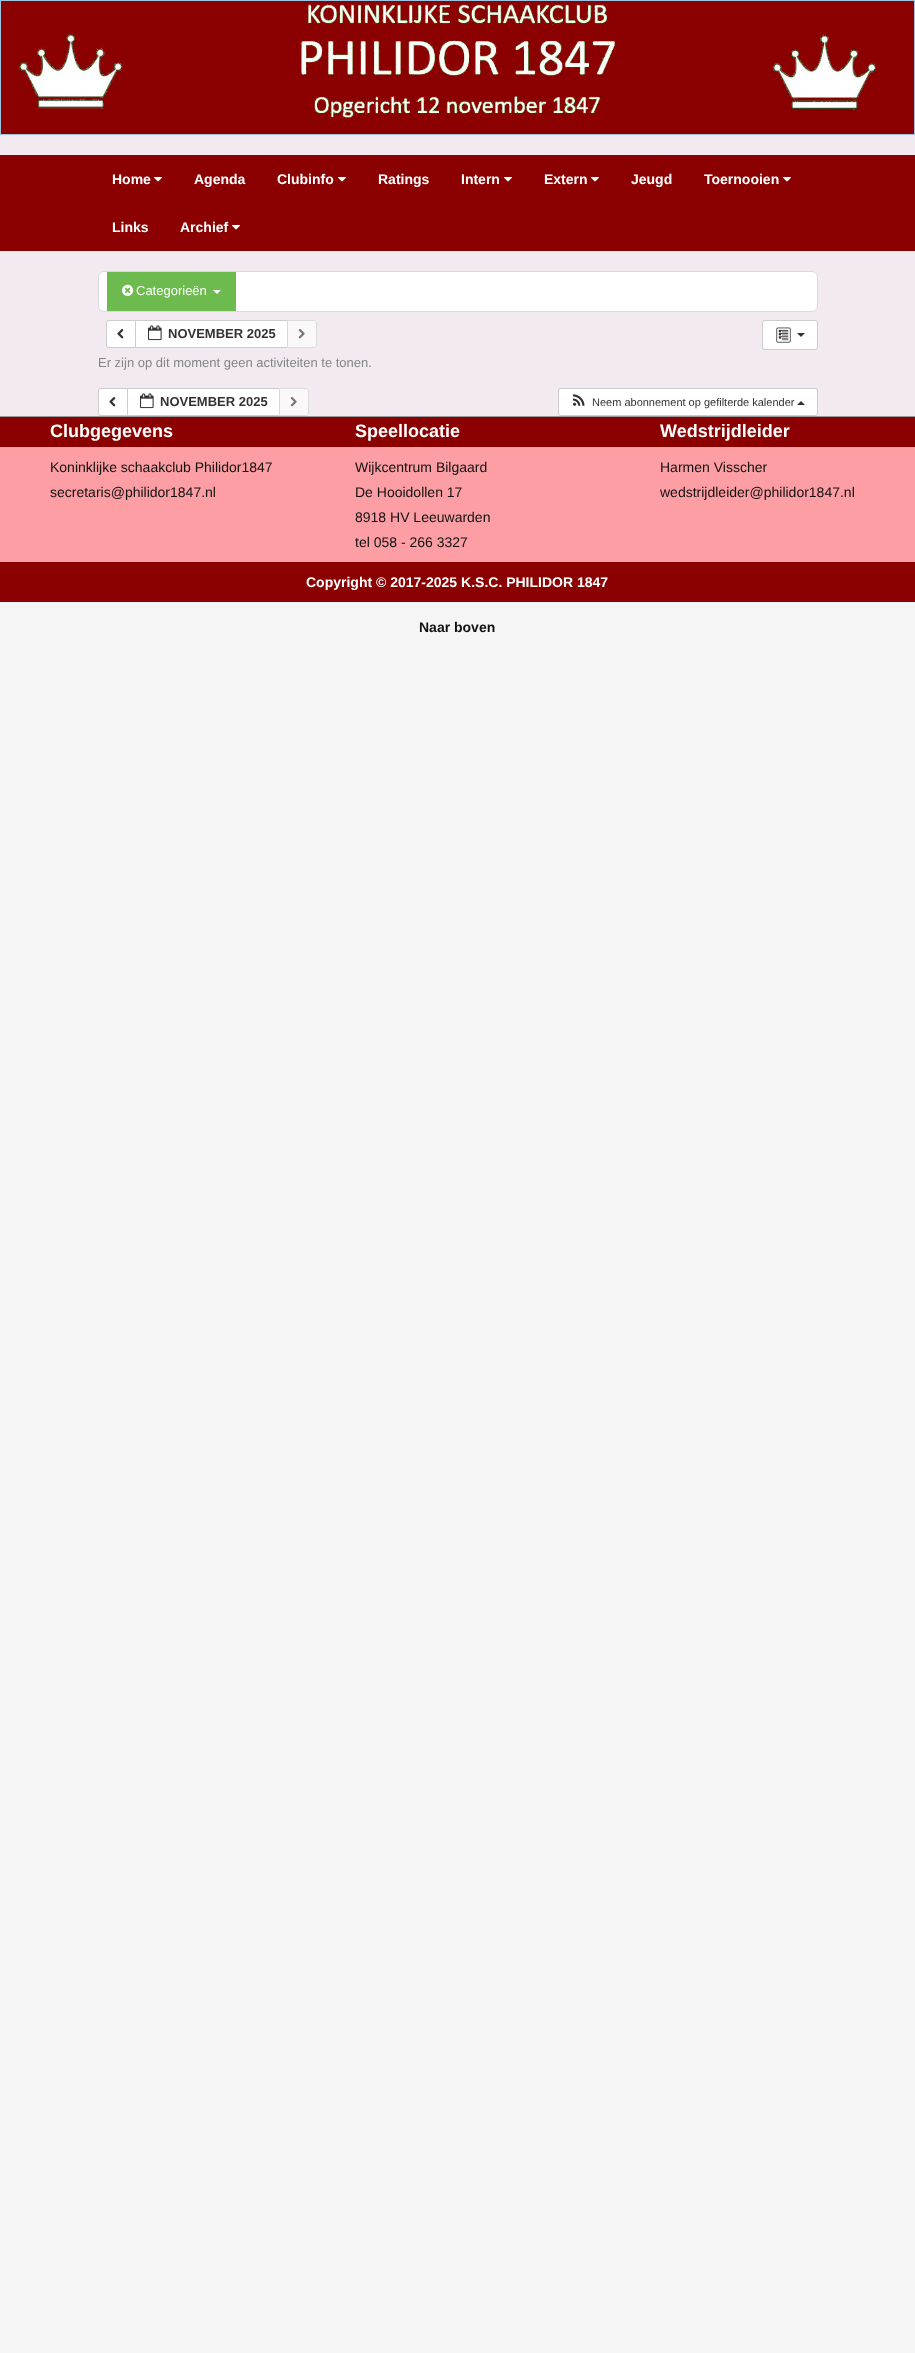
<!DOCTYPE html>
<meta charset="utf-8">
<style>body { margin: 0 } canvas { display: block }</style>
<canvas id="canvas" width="915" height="2353"></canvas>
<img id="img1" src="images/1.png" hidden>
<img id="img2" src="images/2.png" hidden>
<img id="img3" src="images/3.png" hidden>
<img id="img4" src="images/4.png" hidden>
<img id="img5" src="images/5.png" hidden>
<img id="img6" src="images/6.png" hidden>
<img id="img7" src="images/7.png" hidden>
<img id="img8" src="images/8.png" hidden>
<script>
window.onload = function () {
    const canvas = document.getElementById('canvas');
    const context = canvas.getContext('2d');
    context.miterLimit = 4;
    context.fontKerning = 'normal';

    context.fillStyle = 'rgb(245, 245, 245)';
    context.fillRect(0, 0, 915, 2353);
    context.fillStyle = 'rgb(242, 234, 240)';
    context.fillRect(0, 135, 915, 281);
    context.fillStyle = 'rgb(158, 196, 228)';
    context.fillRect(0, 0, 915, 135);
    context.drawImage(document.getElementById('img1'), 1, 1, 913, 133);
    context.fillStyle = 'rgb(139, 0, 0)';
    context.fillRect(0, 155, 915, 96);
    context.drawImage(document.getElementById('img2'), 154, 177, 8, 5);
    context.drawImage(document.getElementById('img2'), 338, 177, 8, 5);
    context.drawImage(document.getElementById('img2'), 504, 177, 8, 5);
    context.drawImage(document.getElementById('img2'), 591, 177, 8, 5);
    context.drawImage(document.getElementById('img2'), 783, 177, 8, 5);
    context.drawImage(document.getElementById('img2'), 232, 225, 8, 5);
    context.fillStyle = 'rgb(255, 255, 255)';
    context.beginPath();
    context.roundRect(98.5, 271.5, 719, 40, 5.5);
    context.fill();
    context.strokeStyle = 'rgb(219, 219, 219)';
    context.stroke();
    context.fillStyle = 'rgb(109, 187, 79)';
    context.fillRect(107, 272, 129, 39);
    context.drawImage(document.getElementById('img3'), 122, 284, 12, 12);
    context.fillStyle = 'rgb(255, 255, 255)';
    context.beginPath();
    context.moveTo(213, 290);
    context.lineTo(221, 290);
    context.lineTo(217, 294);
    context.closePath();
    context.fill();
    context.beginPath();
    context.roundRect(106.5, 320.5, 29, 27, [2.5, 0, 0, 2.5]);
    context.fill();
    context.strokeStyle = 'rgb(204, 204, 204)';
    context.stroke();
    context.drawImage(document.getElementById('img4'), 117, 329, 7, 10);
    context.beginPath();
    context.rect(135.5, 320.5, 152, 27);
    context.fill();
    context.stroke();
    context.drawImage(document.getElementById('img5'), 148, 325, 14, 16);
    context.fillStyle = 'rgba(255, 255, 255, 0.65)';
    context.beginPath();
    context.roundRect(287, 320, 30, 28, [0, 3, 3, 0]);
    context.fill();
    context.beginPath();
    context.roundRect(287.5, 320.5, 29, 27, [0, 2.5, 2.5, 0]);
    context.strokeStyle = 'rgba(204, 204, 204, 0.65)';
    context.stroke();
    context.drawImage(document.getElementById('img6'), 298, 329, 7, 10);
    context.fillStyle = 'rgb(255, 255, 255)';
    context.beginPath();
    context.roundRect(762.5, 320.5, 55, 29, 2.5);
    context.fill();
    context.strokeStyle = 'rgb(204, 204, 204)';
    context.stroke();
    context.drawImage(document.getElementById('img7'), 776, 327, 15, 16);
    context.fillStyle = 'rgb(51, 51, 51)';
    context.beginPath();
    context.moveTo(797, 333);
    context.lineTo(805, 333);
    context.lineTo(801, 337);
    context.closePath();
    context.fill();
    context.fillStyle = 'rgb(255, 255, 255)';
    context.beginPath();
    context.roundRect(98.5, 388.5, 29, 27, [2.5, 0, 0, 2.5]);
    context.fill();
    context.stroke();
    context.drawImage(document.getElementById('img4'), 109, 397, 7, 10);
    context.beginPath();
    context.rect(127.5, 388.5, 152, 27);
    context.fill();
    context.stroke();
    context.drawImage(document.getElementById('img5'), 140, 393, 14, 16);
    context.fillStyle = 'rgba(255, 255, 255, 0.65)';
    context.beginPath();
    context.roundRect(279, 388, 30, 28, [0, 3, 3, 0]);
    context.fill();
    context.beginPath();
    context.roundRect(279.5, 388.5, 29, 27, [0, 2.5, 2.5, 0]);
    context.strokeStyle = 'rgba(204, 204, 204, 0.65)';
    context.stroke();
    context.drawImage(document.getElementById('img6'), 290, 397, 7, 10);
    context.fillStyle = 'rgb(255, 255, 255)';
    context.beginPath();
    context.roundRect(558.5, 388.5, 259, 27, 2.5);
    context.fill();
    context.strokeStyle = 'rgb(204, 204, 204)';
    context.stroke();
    context.drawImage(document.getElementById('img8'), 573, 394, 12, 12);
    context.fillStyle = 'rgb(51, 51, 51)';
    context.beginPath();
    context.moveTo(805, 405);
    context.lineTo(797, 405);
    context.lineTo(801, 401);
    context.closePath();
    context.fill();
    context.fillStyle = 'rgb(252, 158, 163)';
    context.fillRect(0, 447, 915, 115);
    context.fillStyle = 'rgb(153, 153, 153)';
    context.fillRect(0, 416, 915, 1);
    context.fillStyle = 'rgb(139, 0, 0)';
    context.fillRect(0, 417, 915, 30);
    context.fillRect(0, 562, 915, 40);
    context.font = 'bold 14px Liberation Sans';
    context.fillStyle = 'rgb(255, 255, 255)';
    context.fillText('Home', 112, 184);
    context.fillText('Agenda', 194, 184);
    context.fillText('Clubinfo', 277, 184);
    context.fillText('Ratings', 378, 184);
    context.fillText('Intern', 461, 184);
    context.fillText('Extern', 544, 184);
    context.fillText('Jeugd', 631, 184);
    context.fillText('Toernooien', 704, 184);
    context.fillText('Links', 112, 232);
    context.fillText('Archief', 180, 232);
    context.font = '13px Liberation Sans';
    context.fillText('Categorieën', 136, 295);
    context.font = 'bold 13px Liberation Sans';
    context.fillStyle = 'rgb(51, 51, 51)';
    context.fillText('NOVEMBER 2025', 168, 338);
    context.font = '13px Liberation Sans';
    context.fillStyle = 'rgb(133, 133, 133)';
    context.fillText('Er zijn op dit moment geen activiteiten te tonen.', 98, 367);
    context.font = 'bold 13px Liberation Sans';
    context.fillStyle = 'rgb(51, 51, 51)';
    context.fillText('NOVEMBER 2025', 160, 406);
    context.font = '11px Liberation Sans';
    context.fillText('Neem abonnement op gefilterde kalender', 592, 406);
    context.font = 'bold 18px Liberation Sans';
    context.fillStyle = 'rgb(255, 255, 255)';
    context.fillText('Clubgegevens', 50, 437);
    context.font = '14px Liberation Sans';
    context.fillStyle = 'rgb(17, 17, 17)';
    context.fillText('Koninklijke schaakclub Philidor1847', 50, 472);
    context.fillText('secretaris@philidor1847.nl', 50, 497);
    context.font = 'bold 18px Liberation Sans';
    context.fillStyle = 'rgb(255, 255, 255)';
    context.fillText('Speellocatie', 355, 437);
    context.font = '14px Liberation Sans';
    context.fillStyle = 'rgb(17, 17, 17)';
    context.fillText('Wijkcentrum Bilgaard', 355, 472);
    context.fillText('De Hooidollen 17', 355, 497);
    context.fillText('8918 HV Leeuwarden', 355, 522);
    context.fillText('tel 058 - 266 3327', 355, 547);
    context.font = 'bold 18px Liberation Sans';
    context.fillStyle = 'rgb(255, 255, 255)';
    context.fillText('Wedstrijdleider', 660, 437);
    context.font = '14px Liberation Sans';
    context.fillStyle = 'rgb(17, 17, 17)';
    context.fillText('Harmen Visscher', 660, 472);
    context.fillText('wedstrijdleider@philidor1847.nl', 660, 497);
    context.font = 'bold 14px Liberation Sans';
    context.fillStyle = 'rgb(255, 255, 255)';
    context.fillText('Copyright © 2017-2025 K.S.C. PHILIDOR 1847', 306, 587);
    context.fillStyle = 'rgb(17, 17, 17)';
    context.fillText('Naar boven', 419, 632);
};
</script>
